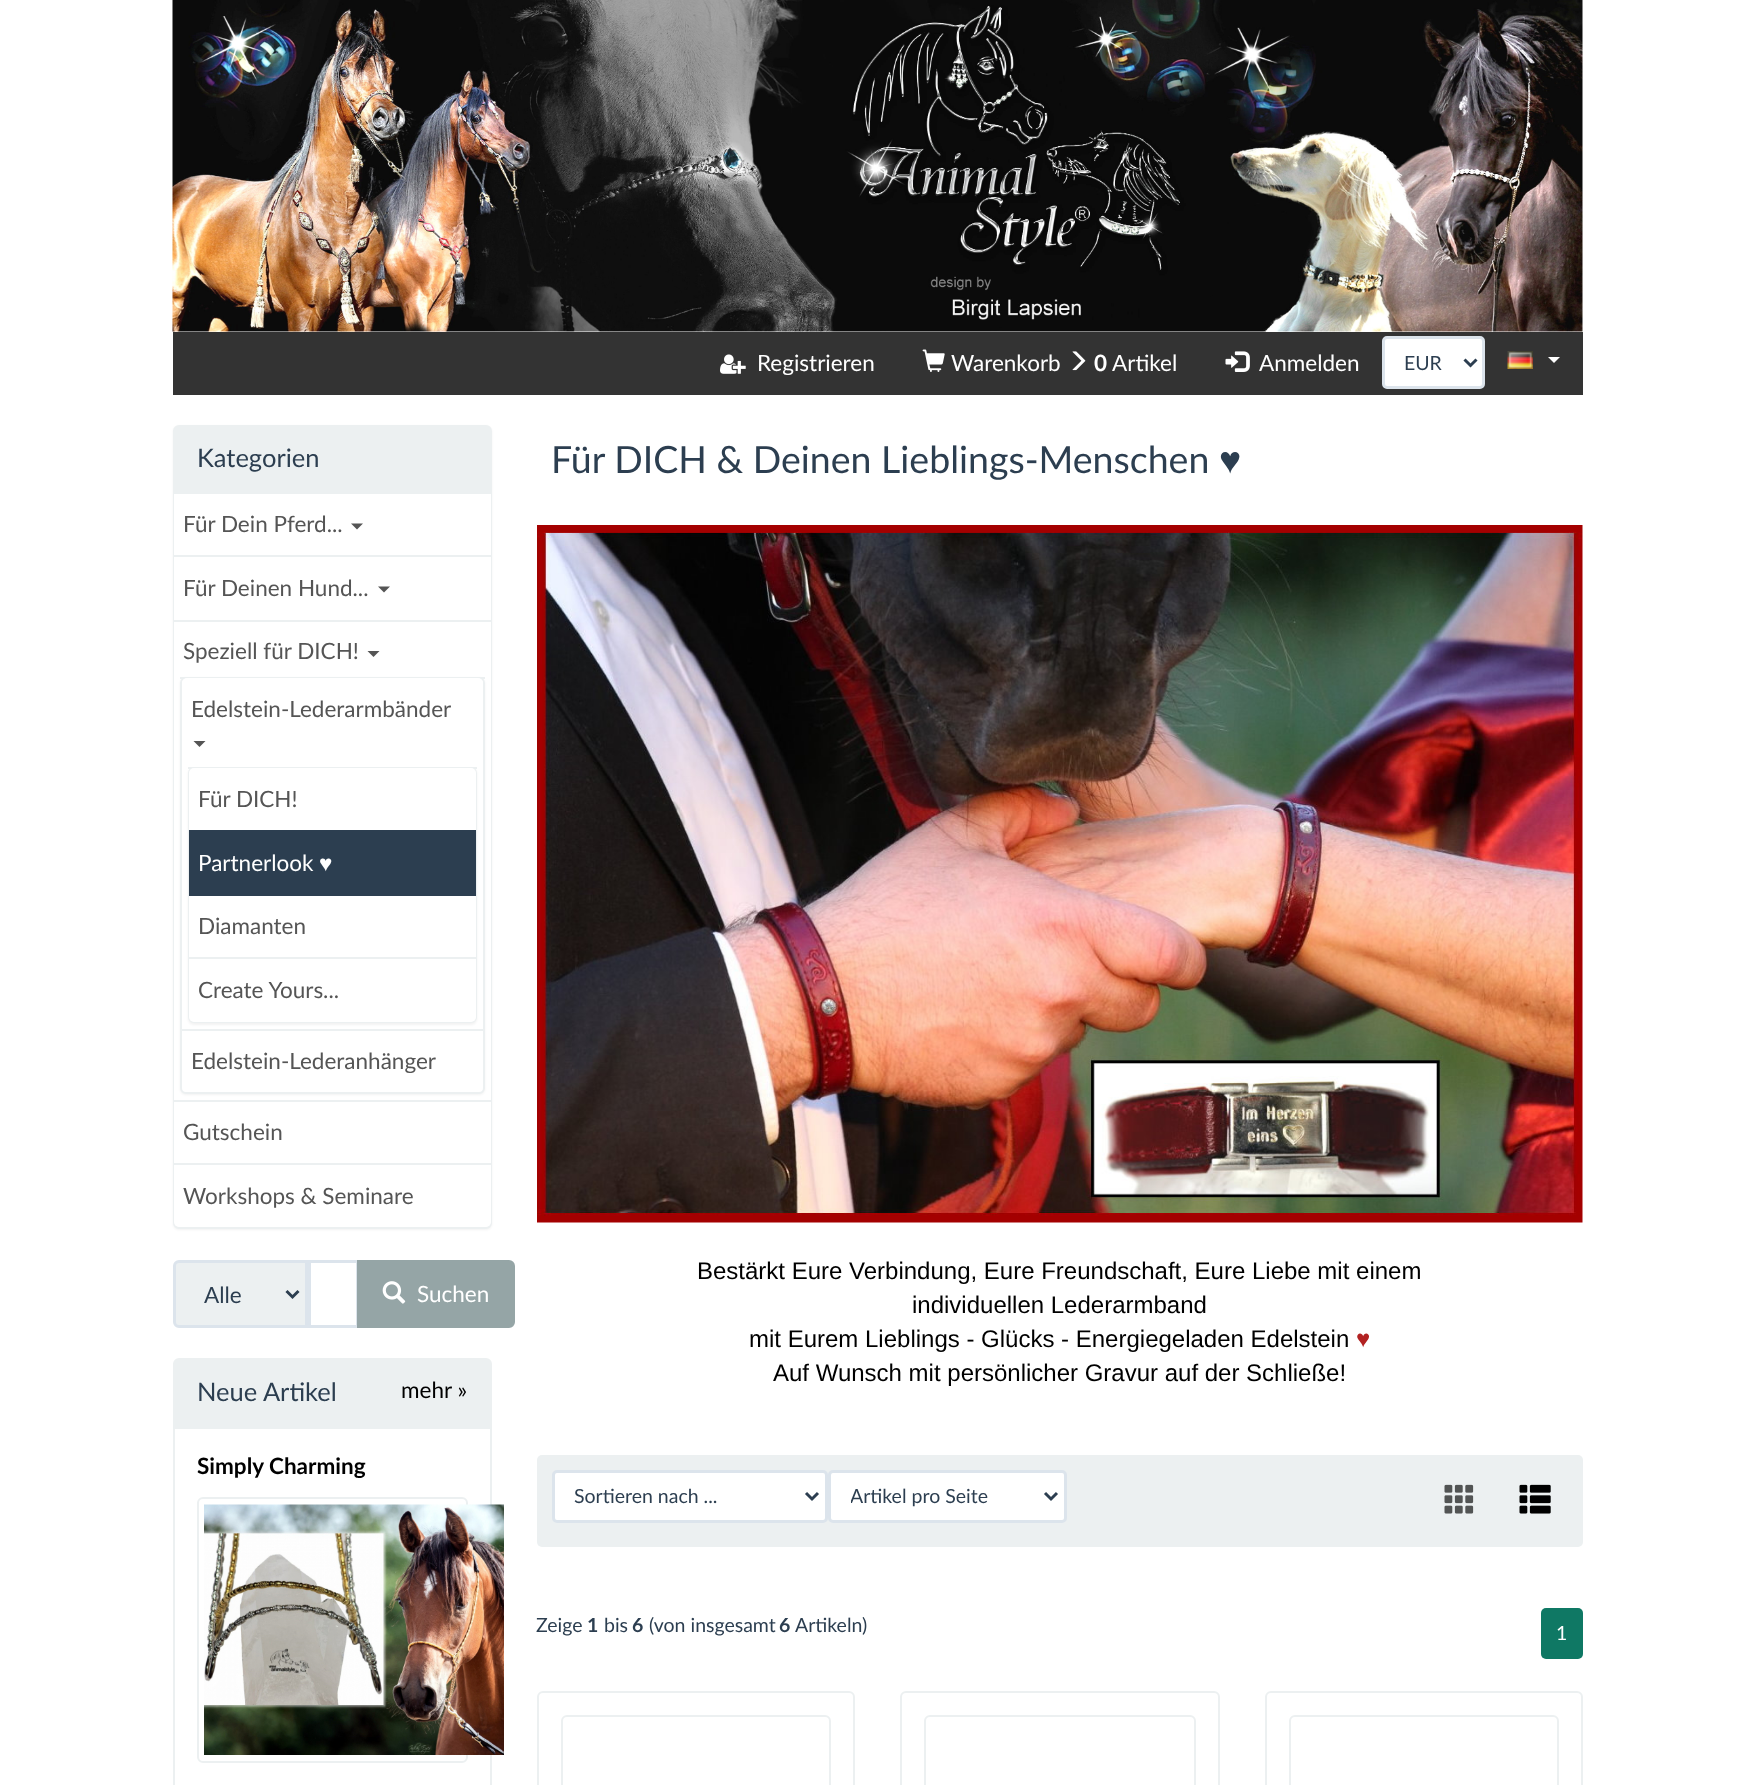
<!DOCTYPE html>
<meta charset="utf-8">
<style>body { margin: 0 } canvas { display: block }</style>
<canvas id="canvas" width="1754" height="1785"></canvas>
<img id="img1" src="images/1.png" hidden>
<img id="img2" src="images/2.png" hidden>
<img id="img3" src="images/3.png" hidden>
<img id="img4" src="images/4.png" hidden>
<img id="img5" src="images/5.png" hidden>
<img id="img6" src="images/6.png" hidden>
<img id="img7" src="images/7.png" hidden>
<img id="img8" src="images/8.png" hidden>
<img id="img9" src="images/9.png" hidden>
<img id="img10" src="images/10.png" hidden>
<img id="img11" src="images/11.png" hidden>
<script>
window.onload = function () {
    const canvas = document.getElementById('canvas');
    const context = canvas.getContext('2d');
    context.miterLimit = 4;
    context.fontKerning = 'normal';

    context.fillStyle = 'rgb(255, 255, 255)';
    context.fillRect(0, 0, 1754, 1785);
    context.drawImage(document.getElementById('img1'), 172, 0, 1411, 332);
    context.fillStyle = 'rgb(51, 51, 51)';
    context.fillRect(173, 332, 1410, 63);
    context.drawImage(document.getElementById('img2'), 720, 354, 26, 20);
    context.drawImage(document.getElementById('img3'), 922, 349, 23, 23);
    context.drawImage(document.getElementById('img4'), 1072, 351, 14, 20);
    context.drawImage(document.getElementById('img5'), 1225, 351, 25, 21);
    context.fillStyle = 'rgb(255, 255, 255)';
    context.beginPath();
    context.roundRect(1383.5, 337.5, 100, 50, 3.5);
    context.fill();
    context.strokeStyle = 'rgb(220, 228, 236)';
    context.lineWidth = 3;
    context.stroke();
    context.beginPath();
    context.moveTo(1464.5, 359.5);
    context.lineTo(1470.5, 365.5);
    context.lineTo(1476.5, 359.5);
    context.strokeStyle = 'rgb(44, 62, 80)';
    context.stroke();
    context.drawImage(document.getElementById('img6'), 1507, 351, 26, 18);
    context.beginPath();
    context.moveTo(1548, 357);
    context.lineTo(1560, 357);
    context.lineTo(1554, 363);
    context.closePath();
    context.fill();
    context.fillStyle = 'rgba(0, 0, 0, 0.05)';
    context.filter = 'blur(1px)';
    context.beginPath();
    context.roundRect(173, 426, 319, 804, 6);
    context.fill();
    context.filter = 'none';
    context.beginPath();
    context.roundRect(174, 426, 317, 802, 5);
    context.strokeStyle = 'rgb(236, 240, 241)';
    context.lineWidth = 2;
    context.stroke();
    context.fillStyle = 'rgb(236, 240, 241)';
    context.beginPath();
    context.roundRect(174, 426, 317, 68, [5, 5, 0, 0]);
    context.fill();
    context.fillStyle = 'rgb(255, 255, 255)';
    context.fillRect(174, 494, 317, 61);
    context.fillStyle = 'rgb(236, 240, 241)';
    context.fillRect(174, 555, 317, 2);
    context.fillStyle = 'rgb(85, 85, 85)';
    context.beginPath();
    context.moveTo(351, 523.5);
    context.lineTo(363, 523.5);
    context.lineTo(357, 529.5);
    context.closePath();
    context.fill();
    context.fillStyle = 'rgb(255, 255, 255)';
    context.fillRect(174, 557, 317, 63);
    context.fillStyle = 'rgb(85, 85, 85)';
    context.beginPath();
    context.moveTo(378, 586.5);
    context.lineTo(390, 586.5);
    context.lineTo(384, 592.5);
    context.closePath();
    context.fill();
    context.fillStyle = 'rgb(255, 255, 255)';
    context.fillRect(174, 622, 317, 478);
    context.fillStyle = 'rgb(236, 240, 241)';
    context.fillRect(174, 620, 317, 2);
    context.fillStyle = 'rgba(0, 0, 0, 0.05)';
    context.filter = 'blur(1px)';
    context.beginPath();
    context.roundRect(180, 678, 305, 417, 6);
    context.fill();
    context.filter = 'none';
    context.fillStyle = 'rgb(255, 255, 255)';
    context.beginPath();
    context.roundRect(181, 678, 303, 415, 5);
    context.fill();
    context.stroke();
    context.fillStyle = 'rgb(236, 240, 241)';
    context.fillRect(180, 677, 305, 2);
    context.fillStyle = 'rgb(85, 85, 85)';
    context.beginPath();
    context.moveTo(367.5, 651);
    context.lineTo(379.5, 651);
    context.lineTo(373.5, 657);
    context.closePath();
    context.fill();
    context.fillStyle = 'rgb(255, 255, 255)';
    context.beginPath();
    context.roundRect(182, 678, 301, 353, [5, 5, 0, 0]);
    context.fill();
    context.fillStyle = 'rgba(0, 0, 0, 0.05)';
    context.filter = 'blur(1px)';
    context.beginPath();
    context.roundRect(188, 768, 289, 257, 6);
    context.fill();
    context.filter = 'none';
    context.beginPath();
    context.roundRect(189, 768, 287, 254, 5);
    context.stroke();
    context.fillStyle = 'rgb(255, 255, 255)';
    context.beginPath();
    context.roundRect(188, 684, 289, 84, [5, 5, 0, 0]);
    context.fill();
    context.fillStyle = 'rgb(236, 240, 241)';
    context.fillRect(188, 767, 289, 2);
    context.fillStyle = 'rgb(85, 85, 85)';
    context.beginPath();
    context.moveTo(193.5, 741);
    context.lineTo(205.5, 741);
    context.lineTo(199.5, 747);
    context.closePath();
    context.fill();
    context.fillStyle = 'rgb(255, 255, 255)';
    context.beginPath();
    context.roundRect(189, 768, 287, 63, [5, 5, 0, 0]);
    context.fill();
    context.fillStyle = 'rgb(44, 62, 80)';
    context.fillRect(189, 830, 287, 66);
    context.fillStyle = 'rgb(255, 255, 255)';
    context.fillRect(189, 896, 287, 61);
    context.beginPath();
    context.roundRect(189, 957, 287, 65, [0, 0, 5, 5]);
    context.fill();
    context.fillStyle = 'rgb(236, 240, 241)';
    context.fillRect(189, 957, 287, 2);
    context.fillRect(182, 1029, 301, 2);
    context.fillStyle = 'rgb(255, 255, 255)';
    context.fillRect(174, 1102, 317, 61);
    context.fillStyle = 'rgb(236, 240, 241)';
    context.fillRect(174, 1100, 317, 2);
    context.fillStyle = 'rgb(255, 255, 255)';
    context.beginPath();
    context.roundRect(174, 1163, 317, 64, [0, 0, 5, 5]);
    context.fill();
    context.fillStyle = 'rgb(236, 240, 241)';
    context.fillRect(174, 1163, 317, 2);
    context.beginPath();
    context.roundRect(174.5, 1261.5, 132, 65, [4.5, 0, 0, 4.5]);
    context.fill();
    context.strokeStyle = 'rgb(220, 228, 236)';
    context.lineWidth = 3;
    context.stroke();
    context.beginPath();
    context.moveTo(286.5, 1291);
    context.lineTo(292.5, 1297);
    context.lineTo(298.5, 1291);
    context.strokeStyle = 'rgb(44, 62, 80)';
    context.stroke();
    context.strokeStyle = 'rgb(220, 228, 236)';
    context.strokeRect(309.5, 1261.5, 48, 65);
    context.fillStyle = 'rgb(149, 165, 166)';
    context.beginPath();
    context.roundRect(358.5, 1261.5, 155, 65, [0, 4.5, 4.5, 0]);
    context.fill();
    context.strokeStyle = 'rgb(149, 165, 166)';
    context.stroke();
    context.drawImage(document.getElementById('img7'), 382, 1281, 24, 23);
    context.beginPath();
    context.roundRect(174, 1359, 317, 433, 5);
    context.strokeStyle = 'rgb(236, 240, 241)';
    context.lineWidth = 2;
    context.stroke();
    context.fillStyle = 'rgb(236, 240, 241)';
    context.beginPath();
    context.roundRect(174, 1359, 317, 69, [5, 5, 0, 0]);
    context.fill();
    context.fillRect(174, 1428, 317, 1);
    context.beginPath();
    context.roundRect(198, 1498, 269, 264, 5);
    context.stroke();
    context.drawImage(document.getElementById('img8'), 204, 1504, 300, 251);
    context.drawImage(document.getElementById('img9'), 537, 525, 1046, 698);
    context.beginPath();
    context.roundRect(537, 1455, 1046, 92, 5);
    context.fill();
    context.fillStyle = 'rgb(255, 255, 255)';
    context.beginPath();
    context.roundRect(553.5, 1471.5, 273, 50, 3.5);
    context.fill();
    context.strokeStyle = 'rgb(220, 228, 236)';
    context.lineWidth = 3;
    context.stroke();
    context.beginPath();
    context.moveTo(806, 1493);
    context.lineTo(812, 1499);
    context.lineTo(818, 1493);
    context.strokeStyle = 'rgb(44, 62, 80)';
    context.stroke();
    context.beginPath();
    context.roundRect(829.5, 1471.5, 236, 50, 3.5);
    context.fill();
    context.strokeStyle = 'rgb(220, 228, 236)';
    context.stroke();
    context.beginPath();
    context.moveTo(1045, 1493);
    context.lineTo(1051, 1499);
    context.lineTo(1057, 1493);
    context.strokeStyle = 'rgb(44, 62, 80)';
    context.stroke();
    context.drawImage(document.getElementById('img10'), 1444, 1484, 30, 30);
    context.drawImage(document.getElementById('img11'), 1519, 1484, 32, 30);
    context.fillStyle = 'rgb(15, 120, 100)';
    context.beginPath();
    context.roundRect(1541, 1608, 42, 51, 5);
    context.fill();
    context.beginPath();
    context.roundRect(538, 1692, 316, 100, 5);
    context.strokeStyle = 'rgb(236, 240, 241)';
    context.lineWidth = 2;
    context.stroke();
    context.beginPath();
    context.roundRect(562, 1716, 268, 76, 5);
    context.stroke();
    context.beginPath();
    context.roundRect(901, 1692, 318, 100, 5);
    context.stroke();
    context.beginPath();
    context.roundRect(925, 1716, 270, 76, 5);
    context.stroke();
    context.beginPath();
    context.roundRect(1266, 1692, 316, 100, 5);
    context.stroke();
    context.beginPath();
    context.roundRect(1290, 1716, 268, 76, 5);
    context.stroke();
    context.font = '22.5px Lato';
    context.fillStyle = 'rgb(255, 255, 255)';
    context.fillText('Registrieren', 757, 371);
    context.fillText('Warenkorb', 951, 371);
    context.font = 'bold 22.5px Lato';
    context.fillText('0', 1094, 371);
    context.font = '22.5px Lato';
    context.fillText('Artikel', 1112, 371);
    context.fillText('Anmelden', 1259, 371);
    context.font = '19.5px Lato';
    context.fillStyle = 'rgb(44, 62, 80)';
    context.fillText('EUR', 1404, 370);
    context.font = '25.5px Lato';
    context.fillText('Kategorien', 197, 467);
    context.font = '22.5px Lato';
    context.fillStyle = 'rgb(85, 85, 85)';
    context.fillText('Für Dein Pferd...', 183, 532);
    context.fillText('Für Deinen Hund...', 183, 596);
    context.fillText('Speziell für DICH!', 183, 659);
    context.fillText('Edelstein-Lederarmbänder', 191, 717);
    context.fillText('Für DICH!', 198, 807);
    context.fillStyle = 'rgb(255, 255, 255)';
    context.fillText('Partnerlook', 198, 871);
    context.font = '22.5px Liberation Sans';
    context.fillText('♥', 319, 871);
    context.font = '22.5px Lato';
    context.fillStyle = 'rgb(85, 85, 85)';
    context.fillText('Diamanten', 198, 934);
    context.fillText('Create Yours...', 198, 998);
    context.fillText('Edelstein-Lederanhänger', 191, 1069);
    context.fillText('Gutschein', 183, 1140);
    context.fillText('Workshops & Seminare', 183, 1204);
    context.fillStyle = 'rgb(44, 62, 80)';
    context.fillText('Alle', 204, 1303);
    context.fillStyle = 'rgb(255, 255, 255)';
    context.fillText('Suchen', 417, 1302);
    context.font = '25.5px Lato';
    context.fillStyle = 'rgb(44, 62, 80)';
    context.fillText('Neue Artikel', 197, 1401);
    context.font = '22.5px Lato';
    context.fillStyle = 'rgb(0, 0, 0)';
    context.fillText('mehr »', 401, 1398);
    context.font = 'bold 22.5px Lato';
    context.fillText('Simply Charming', 197, 1474);
    context.font = '37.5px Lato';
    context.fillStyle = 'rgb(44, 62, 80)';
    context.fillText('Für DICH & Deinen Lieblings-Menschen', 551, 473);
    context.font = '37.5px Liberation Sans';
    context.fillText('♥', 1219, 473);
    context.font = '24px Liberation Sans';
    context.fillStyle = 'rgb(0, 0, 0)';
    context.fillText('Bestärkt Eure Verbindung, Eure Freundschaft, Eure Liebe mit einem', 697, 1279);
    context.fillText('individuellen Lederarmband', 912, 1313);
    context.fillText('mit Eurem Lieblings - Glücks - Energiegeladen Edelstein', 749, 1347);
    context.fillStyle = 'rgb(178, 34, 34)';
    context.fillText('♥', 1356, 1347);
    context.fillStyle = 'rgb(0, 0, 0)';
    context.fillText('Auf Wunsch mit persönlicher Gravur auf der Schließe!', 773, 1381);
    context.font = '19.5px Lato';
    context.fillStyle = 'rgb(44, 62, 80)';
    context.fillText('Sortieren nach ...', 574, 1503);
    context.save();
    context.beginPath();
    context.rect(851, 1482, 175, 27);
    context.clip();
    context.fillText('Artikel pro Seite', 850, 1503);
    context.restore();
    context.fillText('Zeige', 536, 1632);
    context.font = 'bold 19.5px Lato';
    context.fillText('1', 587, 1632);
    context.font = '19.5px Lato';
    context.fillText('bis', 604, 1632);
    context.font = 'bold 19.5px Lato';
    context.fillText('6', 632, 1632);
    context.font = '19.5px Lato';
    context.fillText('(von insgesamt', 649, 1632);
    context.font = 'bold 19.5px Lato';
    context.fillText('6', 779, 1632);
    context.font = '19.5px Lato';
    context.fillText('Artikeln)', 795, 1632);
    context.fillStyle = 'rgb(255, 255, 255)';
    context.fillText('1', 1556, 1640);
};
</script>
